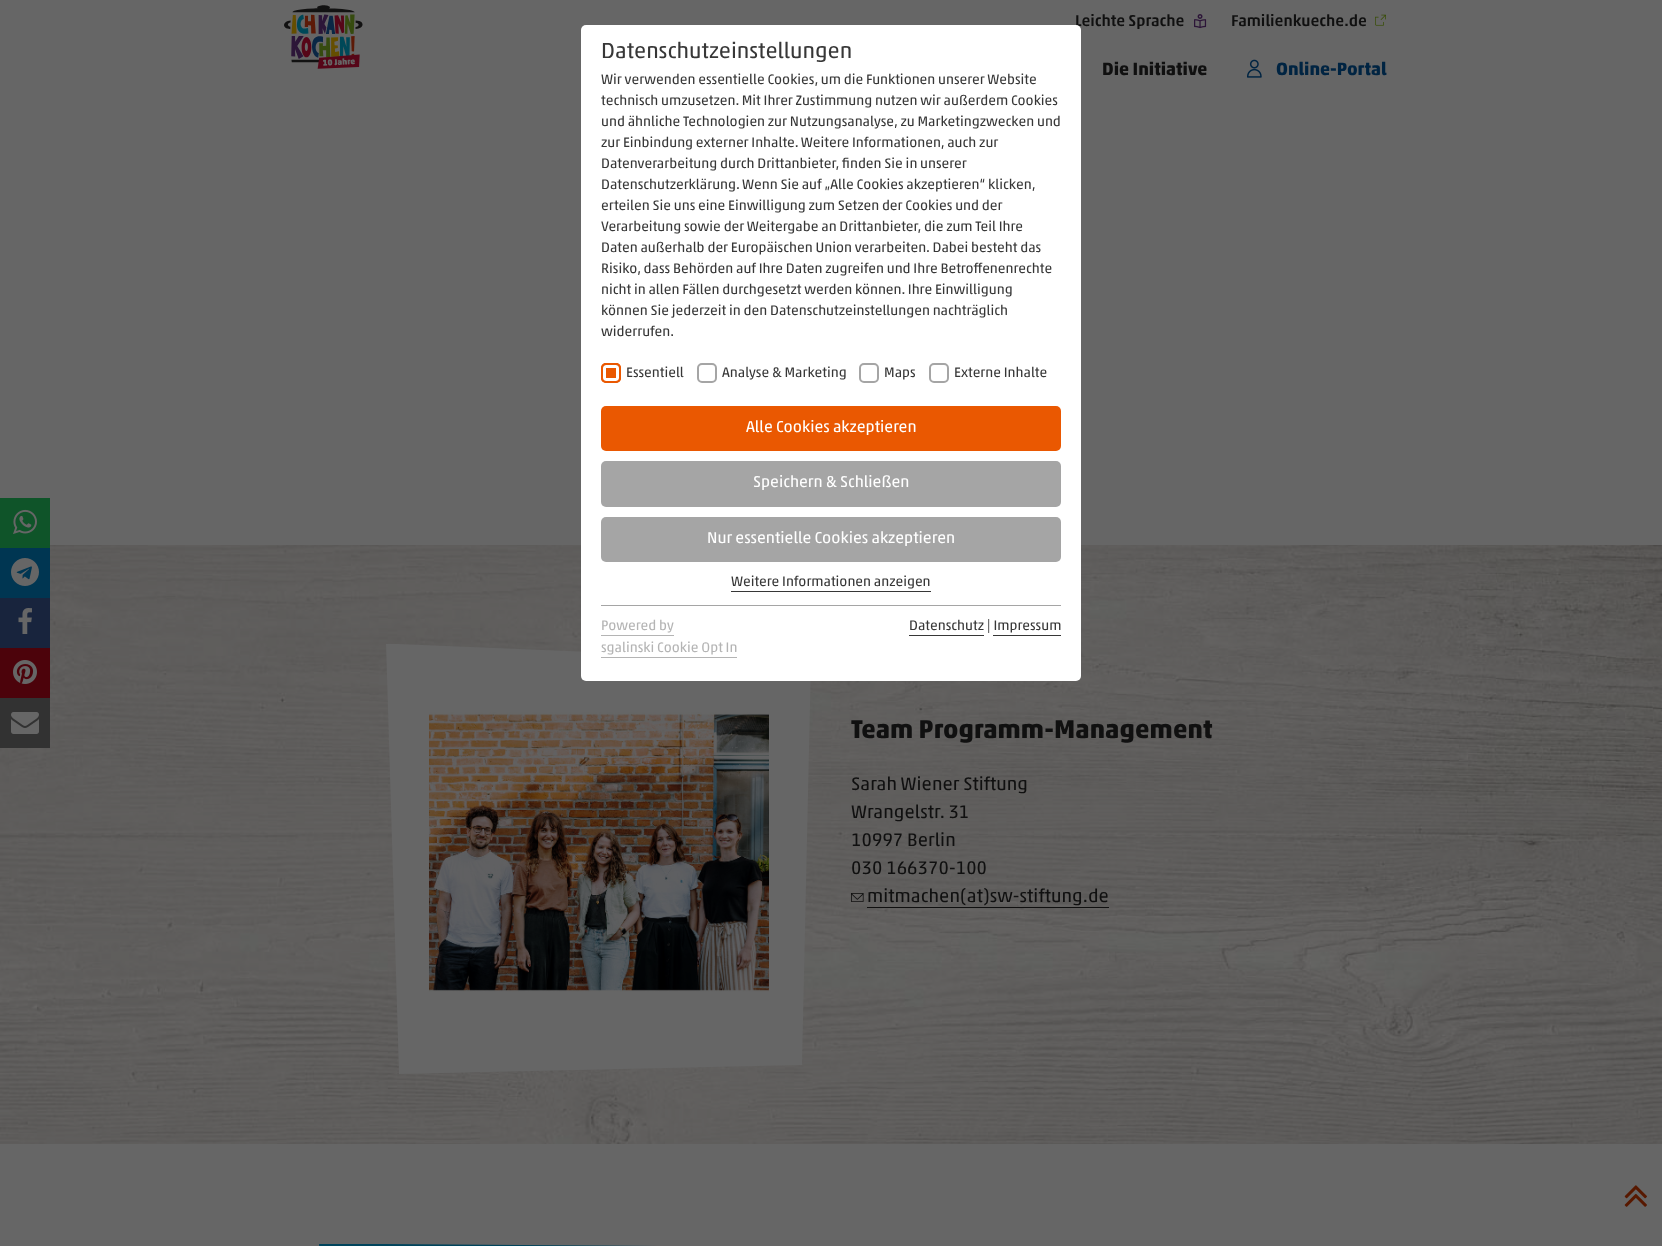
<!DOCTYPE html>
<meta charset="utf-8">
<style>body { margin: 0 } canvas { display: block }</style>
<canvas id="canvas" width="1662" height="1246"></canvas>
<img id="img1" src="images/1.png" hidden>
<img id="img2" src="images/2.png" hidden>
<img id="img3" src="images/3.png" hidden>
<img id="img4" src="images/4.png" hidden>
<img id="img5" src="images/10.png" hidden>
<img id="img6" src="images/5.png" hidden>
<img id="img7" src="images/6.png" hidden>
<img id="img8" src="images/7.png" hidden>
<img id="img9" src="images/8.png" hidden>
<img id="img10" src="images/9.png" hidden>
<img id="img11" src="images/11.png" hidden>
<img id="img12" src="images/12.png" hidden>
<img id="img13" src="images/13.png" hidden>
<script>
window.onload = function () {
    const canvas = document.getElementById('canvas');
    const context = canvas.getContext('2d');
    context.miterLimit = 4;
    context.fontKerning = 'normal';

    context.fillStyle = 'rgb(102, 102, 102)';
    context.fillRect(0, 0, 1662, 1246);
    context.drawImage(document.getElementById('img1'), 284, 5, 79, 64);
    context.drawImage(document.getElementById('img2'), 1194, 14, 13, 15);
    context.drawImage(document.getElementById('img3'), 1375, 14, 11, 12);
    context.drawImage(document.getElementById('img4'), 1247, 59, 15, 19);
    context.drawImage(document.getElementById('img5'), 0, 545, 1662, 599);
    context.fillStyle = 'rgb(15, 84, 41)';
    context.fillRect(0, 498, 50, 50);
    context.drawImage(document.getElementById('img6'), 13, 509, 24, 25);
    context.fillStyle = 'rgb(0, 54, 82)';
    context.fillRect(0, 548, 50, 50);
    context.drawImage(document.getElementById('img7'), 11, 558, 28, 28);
    context.fillStyle = 'rgb(24, 36, 61)';
    context.fillRect(0, 598, 50, 50);
    context.drawImage(document.getElementById('img8'), 18, 608, 14, 26);
    context.fillStyle = 'rgb(76, 3, 11)';
    context.fillRect(0, 648, 50, 50);
    context.drawImage(document.getElementById('img9'), 13, 660, 24, 24);
    context.fillStyle = 'rgb(50, 50, 50)';
    context.fillRect(0, 698, 50, 50);
    context.drawImage(document.getElementById('img10'), 11, 712, 28, 22);
    context.fillStyle = 'rgb(102, 102, 102)';
    context.beginPath();
    context.moveTo(398, 644);
    context.lineTo(811, 661);
    context.lineTo(802, 1065);
    context.lineTo(399, 1074);
    context.lineTo(386, 644);
    context.closePath();
    context.fill();
    context.drawImage(document.getElementById('img11'), 429, 712, 340, 280);
    context.drawImage(document.getElementById('img12'), 851, 893, 13, 9);
    context.fillStyle = 'rgb(16, 16, 16)';
    context.fillRect(867, 907, 242, 1);
    context.fillStyle = 'rgb(0, 68, 92)';
    context.beginPath();
    context.moveTo(384, 1244);
    context.lineTo(1343, 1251);
    context.lineTo(1323, 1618);
    context.lineTo(339, 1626);
    context.lineTo(319, 1244);
    context.closePath();
    context.fill();
    context.drawImage(document.getElementById('img13'), 1624, 1185, 23, 22);
    context.font = '500 16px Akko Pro';
    context.fillStyle = 'rgb(16, 16, 16)';
    context.fillText('Leichte Sprache', 1075, 26);
    context.fillStyle = 'rgb(255, 255, 255)';
    context.beginPath();
    context.roundRect(581, 25, 500, 656, 5);
    context.fill();
    context.font = '14px Akko Pro';
    context.fillStyle = 'rgb(180, 180, 180)';
    context.fillText('sgalinski Cookie Opt In', 601, 652);
    context.fillRect(601, 657, 136, 1);
    context.fillText('Powered by', 601, 630);
    context.fillRect(601, 635, 73, 1);
    context.fillStyle = 'rgb(55, 55, 55)';
    context.fillText('Weitere Informationen anzeigen', 731, 586);
    context.fillRect(731, 591, 200, 1);
    context.fillStyle = 'rgb(165, 165, 165)';
    context.beginPath();
    context.roundRect(601, 517, 460, 45, 5);
    context.fill();
    context.font = '16px Akko Pro';
    context.fillStyle = 'rgb(255, 255, 255)';
    context.fillText('Nur essentielle Cookies akzeptieren', 707, 543);
    context.fillStyle = 'rgb(165, 165, 165)';
    context.beginPath();
    context.roundRect(601, 461, 460, 46, 5);
    context.fill();
    context.fillStyle = 'rgb(255, 255, 255)';
    context.fillText('Speichern & Schließen', 753, 487);
    context.fillStyle = 'rgb(234, 88, 1)';
    context.beginPath();
    context.roundRect(601, 406, 460, 45, 5);
    context.fill();
    context.fillStyle = 'rgb(255, 255, 255)';
    context.fillText('Alle Cookies akzeptieren', 746, 432);
    context.font = '14px Akko Pro';
    context.fillStyle = 'rgb(55, 55, 55)';
    context.fillText('Externe Inhalte', 954, 377);
    context.beginPath();
    context.roundRect(930, 364, 18, 18, 4);
    context.strokeStyle = 'rgb(165, 165, 165)';
    context.lineWidth = 2;
    context.stroke();
    context.fillText('Maps', 884, 377);
    context.beginPath();
    context.roundRect(860, 364, 18, 18, 4);
    context.stroke();
    context.fillText('Analyse & Marketing', 722, 377);
    context.beginPath();
    context.roundRect(698, 364, 18, 18, 4);
    context.stroke();
    context.fillText('Essentiell', 626, 377);
    context.fillStyle = 'rgb(234, 88, 1)';
    context.beginPath();
    context.roundRect(601, 363, 20, 20, 5);
    context.fill();
    context.beginPath();
    context.roundRect(604.5, 366.5, 13, 13, 1.5);
    context.strokeStyle = 'rgb(255, 255, 255)';
    context.lineWidth = 3;
    context.stroke();
    context.beginPath();
    context.roundRect(602, 364, 18, 18, 4);
    context.strokeStyle = 'rgb(234, 88, 1)';
    context.lineWidth = 2;
    context.stroke();
    context.fillStyle = 'rgb(55, 55, 55)';
    context.fillText('widerrufen.', 601, 336);
    context.fillText('können Sie jederzeit in den Datenschutzeinstellungen nachträglich', 601, 315);
    context.fillText('nicht in allen Fällen durchgesetzt werden können. Ihre Einwilligung', 601, 294);
    context.fillText('Risiko, dass Behörden auf Ihre Daten zugreifen und Ihre Betroffenenrechte', 601, 273);
    context.fillText('Daten außerhalb der Europäischen Union verarbeiten. Dabei besteht das', 601, 252);
    context.fillText('Verarbeitung sowie der Weitergabe an Drittanbieter, die zum Teil Ihre', 601, 231);
    context.fillText('erteilen Sie uns eine Einwilligung zum Setzen der Cookies und der', 601, 210);
    context.fillText('Datenschutzerklärung. Wenn Sie auf „Alle Cookies akzeptieren“ klicken,', 601, 189);
    context.fillText('Datenverarbeitung durch Drittanbieter, finden Sie in unserer', 601, 168);
    context.fillText('zur Einbindung externer Inhalte. Weitere Informationen, auch zur', 601, 147);
    context.fillText('und ähnliche Technologien zur Nutzungsanalyse, zu Marketingzwecken und', 601, 126);
    context.fillText('technisch umzusetzen. Mit Ihrer Zustimmung nutzen wir außerdem Cookies', 601, 105);
    context.fillText('Wir verwenden essentielle Cookies, um die Funktionen unserer Website', 601, 84);
    context.font = '22px Akko Pro';
    context.fillText('Datenschutzeinstellungen', 601, 58);
    context.fillRect(993, 635, 68, 1);
    context.font = '14px Akko Pro';
    context.fillText('Datenschutz | Impressum', 909, 630);
    context.fillRect(909, 635, 75, 1);
    context.fillStyle = 'rgb(165, 165, 165)';
    context.fillRect(601, 605, 460, 1);
    context.font = '500 16px Akko Pro';
    context.fillStyle = 'rgb(16, 16, 16)';
    context.fillText('Familienkueche.de', 1231, 26);
    context.font = 'bold 18px Akko Pro';
    context.fillText('Die Initiative', 1102, 75);
    context.fillStyle = 'rgb(0, 36, 66)';
    context.fillText('Online-Portal', 1276, 75);
    context.letterSpacing = '0.1px';
    context.font = 'bold 26px Akko Pro';
    context.fillStyle = 'rgb(16, 16, 16)';
    context.fillText('Team Programm-Management', 851, 738);
    context.font = '18.5px Akko Pro';
    context.fillText('Sarah Wiener Stiftung', 851, 790);
    context.fillText('Wrangelstr. 31', 851, 818);
    context.fillText('10997 Berlin', 851, 846);
    context.fillText('030 166370-100', 851, 874);
    context.fillText('mitmachen(at)sw-stiftung.de', 867, 902);
};
</script>
